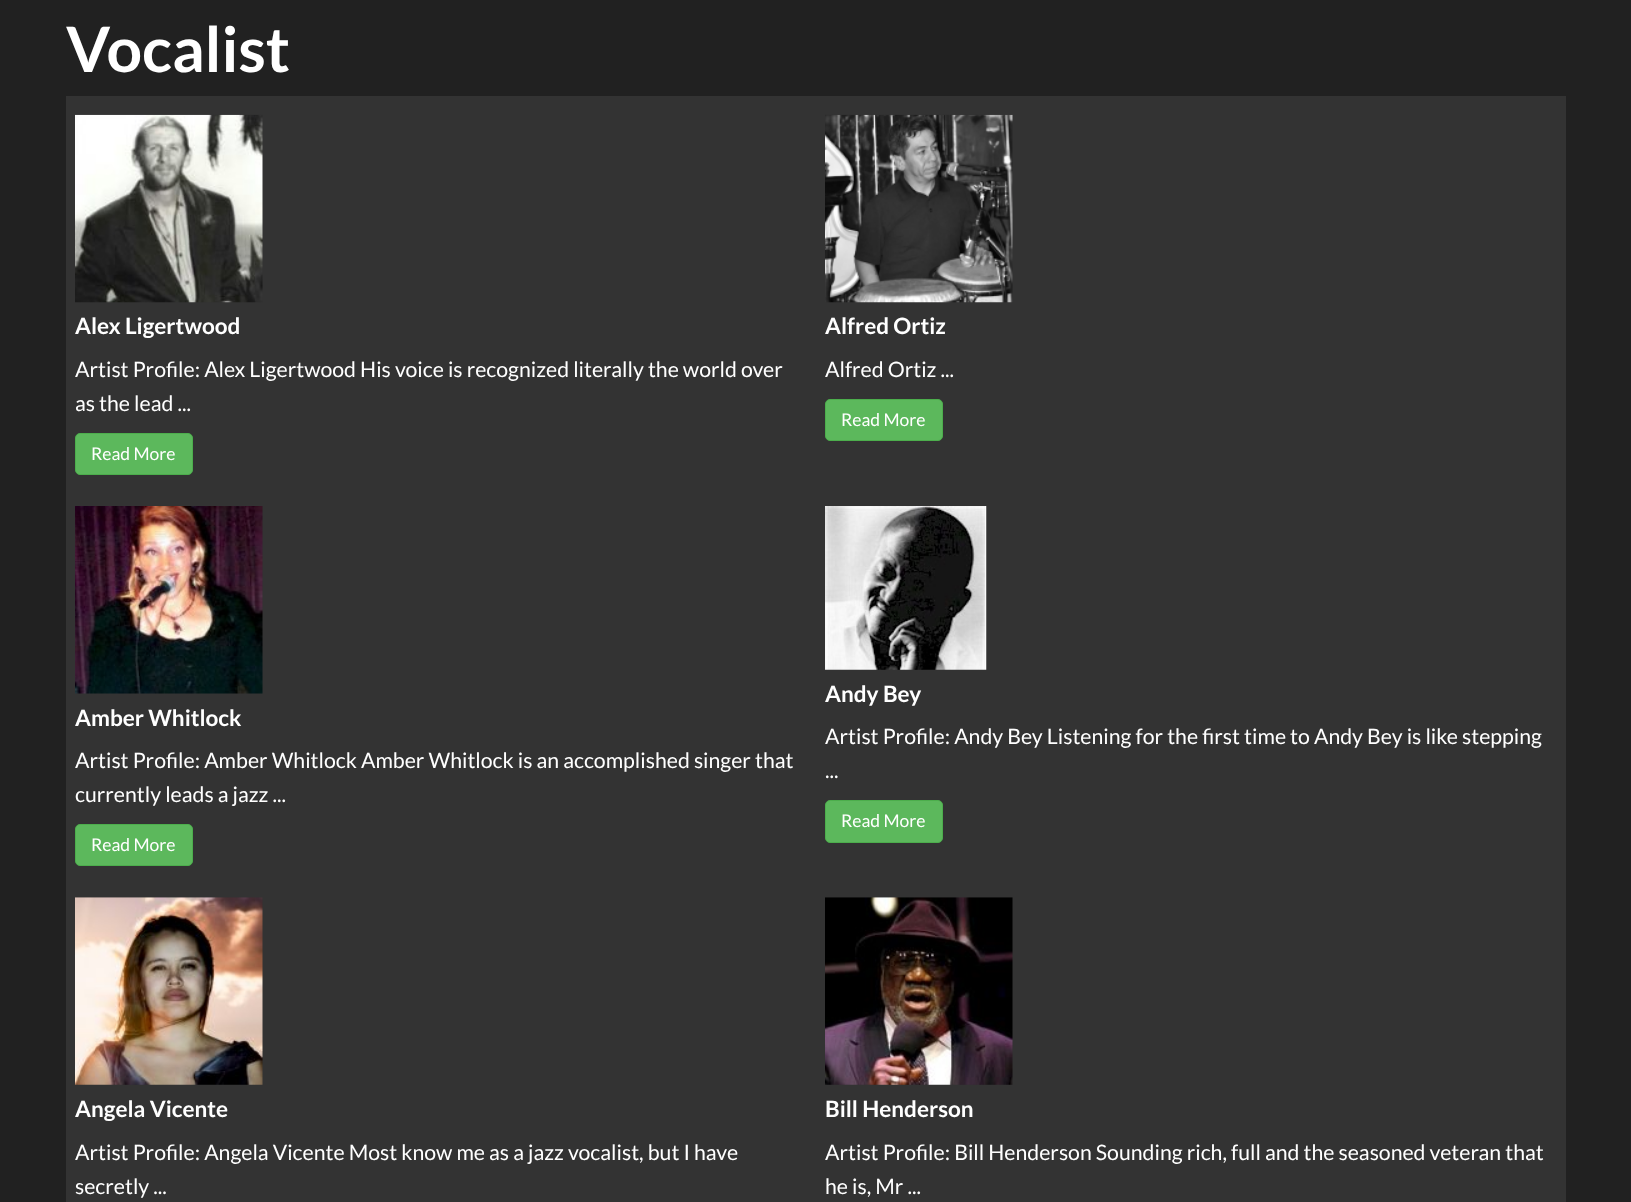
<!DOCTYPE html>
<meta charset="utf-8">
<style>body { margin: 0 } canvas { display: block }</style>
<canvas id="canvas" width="1631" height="1202"></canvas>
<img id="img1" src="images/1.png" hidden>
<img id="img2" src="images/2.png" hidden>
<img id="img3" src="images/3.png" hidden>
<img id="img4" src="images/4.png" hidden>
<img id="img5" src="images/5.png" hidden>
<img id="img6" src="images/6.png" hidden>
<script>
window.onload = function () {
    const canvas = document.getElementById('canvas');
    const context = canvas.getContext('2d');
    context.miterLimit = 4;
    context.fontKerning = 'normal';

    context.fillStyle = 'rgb(33, 33, 33)';
    context.fillRect(0, 0, 1631, 1202);
    context.fillStyle = 'rgb(51, 51, 51)';
    context.fillRect(66, 96, 1500, 1106);
    context.drawImage(document.getElementById('img1'), 75, 114, 188, 189);
    context.fillStyle = 'rgb(92, 184, 92)';
    context.beginPath();
    context.roundRect(75.5, 433.5, 117, 41, 4.5);
    context.fill();
    context.strokeStyle = 'rgb(76, 174, 76)';
    context.stroke();
    context.drawImage(document.getElementById('img2'), 825, 114, 188, 189);
    context.beginPath();
    context.roundRect(825.5, 399.5, 117, 41, 4.5);
    context.fill();
    context.stroke();
    context.drawImage(document.getElementById('img3'), 75, 506, 188, 188);
    context.beginPath();
    context.roundRect(75.5, 824.5, 117, 41, 4.5);
    context.fill();
    context.stroke();
    context.drawImage(document.getElementById('img4'), 825, 506, 162, 164);
    context.beginPath();
    context.roundRect(825.5, 800.5, 117, 42, 4.5);
    context.fill();
    context.stroke();
    context.drawImage(document.getElementById('img5'), 75, 897, 188, 188);
    context.drawImage(document.getElementById('img6'), 825, 897, 188, 188);
    context.font = 'bold 62.5px Lato';
    context.fillStyle = 'rgb(255, 255, 255)';
    context.fillText('Vocalist', 66, 72);
    context.font = 'bold 22.5px Lato';
    context.fillText('Alex Ligertwood', 75, 334);
    context.font = '21.25px Lato';
    context.fillText('Artist Profile: Alex Ligertwood His voice is recognized literally the world over', 75, 377);
    context.fillText('as the lead ...', 75, 411);
    context.font = '17.5px Lato';
    context.fillText('Read More', 91, 460);
    context.font = 'bold 22.5px Lato';
    context.fillText('Alfred Ortiz', 825, 334);
    context.font = '21.25px Lato';
    context.fillText('Alfred Ortiz ...', 825, 377);
    context.font = '17.5px Lato';
    context.fillText('Read More', 841, 426);
    context.font = 'bold 22.5px Lato';
    context.fillText('Amber Whitlock', 75, 726);
    context.font = '21.25px Lato';
    context.fillText('Artist Profile: Amber Whitlock Amber Whitlock is an accomplished singer that', 75, 768);
    context.fillText('currently leads a jazz ...', 75, 802);
    context.font = '17.5px Lato';
    context.fillText('Read More', 91, 851);
    context.font = 'bold 22.5px Lato';
    context.fillText('Andy Bey', 825, 702);
    context.font = '21.25px Lato';
    context.fillText('Artist Profile: Andy Bey Listening for the first time to Andy Bey is like stepping', 825, 744);
    context.fillText('...', 825, 778);
    context.font = '17.5px Lato';
    context.fillText('Read More', 841, 827);
    context.font = 'bold 22.5px Lato';
    context.fillText('Angela Vicente', 75, 1117);
    context.font = '21.25px Lato';
    context.fillText('Artist Profile: Angela Vicente Most know me as a jazz vocalist, but I have', 75, 1160);
    context.fillText('secretly ...', 75, 1194);
    context.font = 'bold 22.5px Lato';
    context.fillText('Bill Henderson', 825, 1117);
    context.font = '21.25px Lato';
    context.fillText('Artist Profile: Bill Henderson Sounding rich, full and the seasoned veteran that', 825, 1160);
    context.fillText('he is, Mr ...', 825, 1194);
};
</script>
